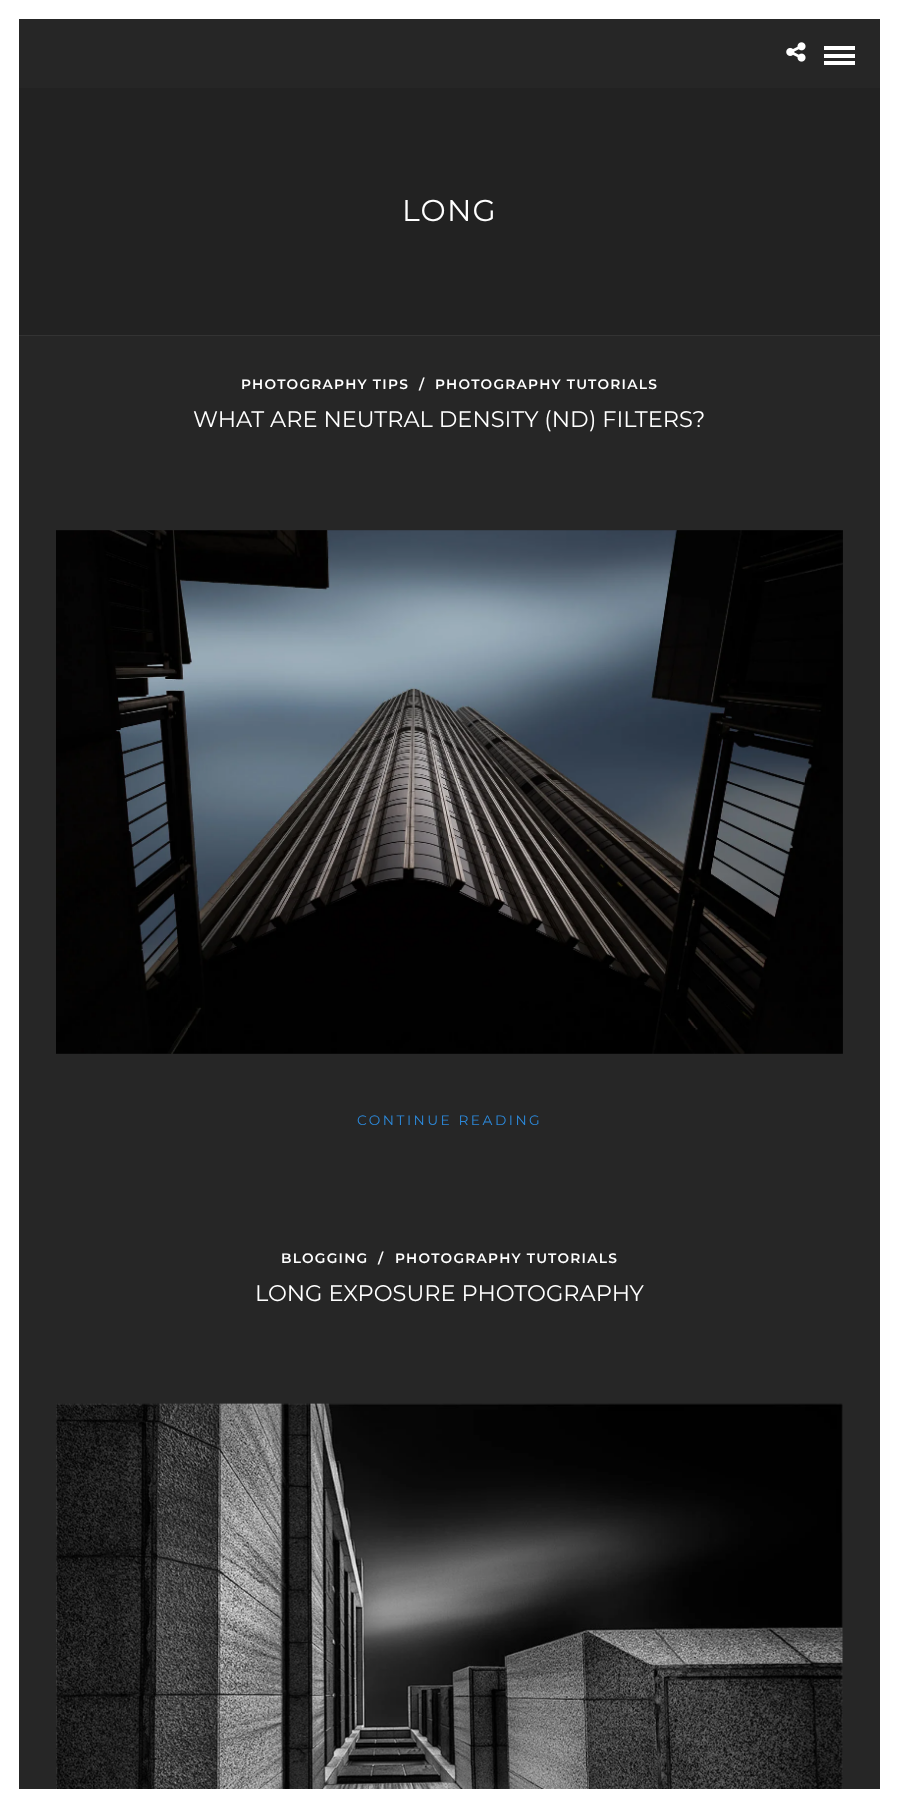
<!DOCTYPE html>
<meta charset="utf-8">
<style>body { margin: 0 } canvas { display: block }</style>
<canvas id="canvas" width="898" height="1807"></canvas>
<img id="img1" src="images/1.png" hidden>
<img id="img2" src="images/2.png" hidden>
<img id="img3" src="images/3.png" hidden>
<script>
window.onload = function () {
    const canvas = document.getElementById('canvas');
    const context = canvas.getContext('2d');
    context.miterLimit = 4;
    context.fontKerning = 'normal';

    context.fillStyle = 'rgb(38, 38, 38)';
    context.fillRect(0, 0, 898, 1807);
    context.fillStyle = 'rgb(255, 255, 255)';
    context.fillRect(0, 0, 19, 1807);
    context.fillRect(19, 0, 861, 19);
    context.fillRect(880, 0, 18, 1807);
    context.drawImage(document.getElementById('img1'), 786, 42, 20, 20);
    context.fillRect(824, 46, 31, 4);
    context.fillRect(824, 54, 31, 4);
    context.fillRect(824, 61, 31, 4);
    context.fillStyle = 'rgb(34, 34, 34)';
    context.fillRect(19, 88, 861, 247);
    context.fillStyle = 'rgb(51, 51, 51)';
    context.fillRect(19, 335, 861, 1);
    context.drawImage(document.getElementById('img2'), 56, 530, 787, 524);
    context.drawImage(document.getElementById('img3'), 56, 1403, 787, 386);
    context.fillStyle = 'rgb(255, 255, 255)';
    context.fillRect(19, 1789, 861, 18);
    context.letterSpacing = '1.25px';
    context.font = '100 30px Montserrat';
    context.fillText('LONG', 402, 221);
    context.font = '600 13.75px Montserrat';
    context.fillText('PHOTOGRAPHY TIPS', 241, 389);
    context.fillText('/', 419, 389);
    context.fillText('PHOTOGRAPHY TUTORIALS', 435, 389);
    context.letterSpacing = '0px';
    context.font = '100 22.5px Montserrat';
    context.fillText('WHAT ARE NEUTRAL DENSITY (ND) FILTERS?', 193, 427);
    context.letterSpacing = '2.5px';
    context.font = '100 13.75px Montserrat';
    context.fillStyle = 'rgb(44, 138, 220)';
    context.fillText('CONTINUE READING', 357, 1125);
    context.letterSpacing = '1.25px';
    context.font = '600 13.75px Montserrat';
    context.fillStyle = 'rgb(255, 255, 255)';
    context.fillText('BLOGGING', 281, 1263);
    context.fillText('/', 378, 1263);
    context.fillText('PHOTOGRAPHY TUTORIALS', 395, 1263);
    context.letterSpacing = '0px';
    context.font = '100 22.5px Montserrat';
    context.fillText('LONG EXPOSURE PHOTOGRAPHY', 255, 1301);
};
</script>
